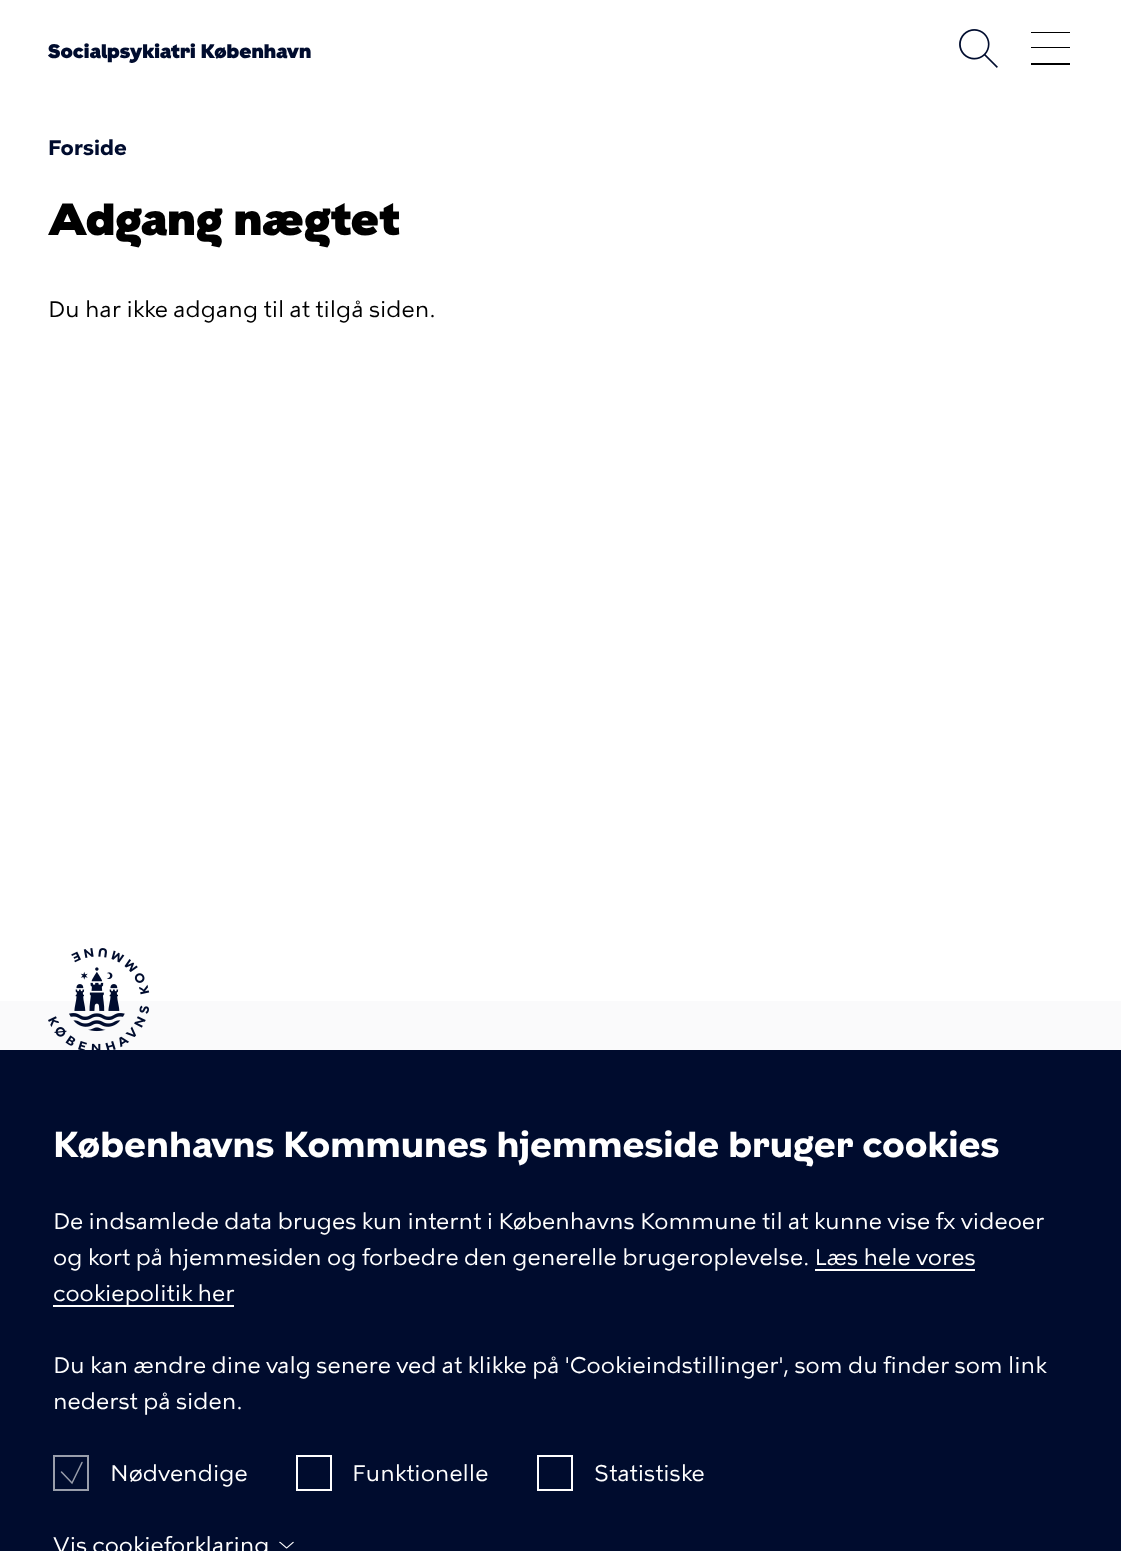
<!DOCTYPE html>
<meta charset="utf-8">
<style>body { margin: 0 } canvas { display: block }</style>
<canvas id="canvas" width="1121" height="1551"></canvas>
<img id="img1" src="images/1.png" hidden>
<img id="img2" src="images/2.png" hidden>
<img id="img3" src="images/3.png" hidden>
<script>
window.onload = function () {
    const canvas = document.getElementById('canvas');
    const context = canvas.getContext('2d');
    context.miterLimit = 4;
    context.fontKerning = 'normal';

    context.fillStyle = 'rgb(255, 255, 255)';
    context.fillRect(0, 0, 1121, 1551);
    context.drawImage(document.getElementById('img1'), 959, 29, 39, 39);
    context.fillStyle = 'rgb(0, 0, 0)';
    context.fillRect(1031, 32, 39, 1);
    context.fillRect(1031, 47, 39, 1);
    context.fillRect(1031, 63, 39, 2);
    context.fillStyle = 'rgb(250, 250, 251)';
    context.fillRect(0, 1001, 1121, 49);
    context.drawImage(document.getElementById('img2'), 48, 948, 102, 102);
    context.fillStyle = 'rgb(0, 12, 46)';
    context.fillRect(0, 1050, 1121, 501);
    context.fillStyle = 'rgb(255, 255, 255)';
    context.fillRect(815, 1269, 160, 2);
    context.fillRect(53, 1305, 181, 2);
    context.strokeStyle = 'rgb(153, 158, 171)';
    context.lineWidth = 2;
    context.strokeRect(54, 1456, 34, 34);
    context.beginPath();
    context.moveTo(61.5, 1472);
    context.lineTo(72, 1483);
    context.lineTo(82, 1462.5);
    context.lineWidth = 1.5;
    context.lineCap = 'round';
    context.stroke();
    context.strokeStyle = 'rgb(255, 255, 255)';
    context.lineWidth = 2;
    context.strokeRect(297, 1456, 34, 34);
    context.strokeRect(538, 1456, 34, 34);
    context.drawImage(document.getElementById('img3'), 279, 1541, 15, 8);
    context.font = '900 19.5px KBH';
    context.fillStyle = 'rgb(0, 12, 46)';
    context.fillText('Socialpsykiatri København', 48, 58);
    context.font = 'bold 21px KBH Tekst';
    context.fillText('Forside', 48, 155);
    context.font = '900 45px KBH';
    context.fillStyle = 'rgb(0, 0, 0)';
    context.fillText('Adgang nægtet', 48, 235);
    context.font = '22.5px KBH Tekst';
    context.fillText('Du har ikke adgang til at tilgå siden.', 48, 317);
    context.font = 'bold 36px KBH';
    context.fillStyle = 'rgb(255, 255, 255)';
    context.fillText('Københavns Kommunes hjemmeside bruger cookies', 53, 1157);
    context.font = '22.5px KBH Tekst';
    context.fillText('De indsamlede data bruges kun internt i Københavns Kommune til at kunne vise fx videoer', 53, 1229);
    context.fillText('og kort på hjemmesiden og forbedre den generelle brugeroplevelse. Læs hele vores', 53, 1265);
    context.fillText('cookiepolitik her', 53, 1301);
    context.fillText('Du kan ændre dine valg senere ved at klikke på \'Cookieindstillinger\', som du finder som link', 53, 1373);
    context.fillText('nederst på siden.', 53, 1409);
    context.fillText('Nødvendige', 110, 1481);
    context.fillText('Funktionelle', 352, 1481);
    context.fillText('Statistiske', 594, 1481);
    context.fillText('Vis cookieforklaring', 53, 1553);
};
</script>
